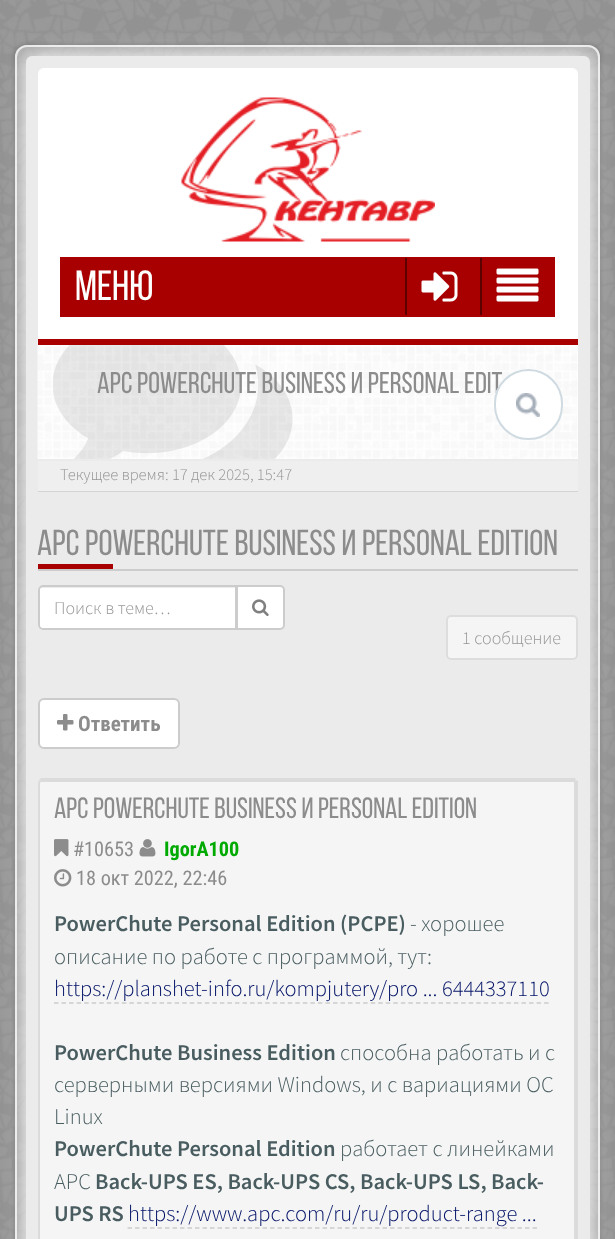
<!DOCTYPE html>
<meta charset="utf-8">
<style>body { margin: 0 } canvas { display: block }</style>
<canvas id="canvas" width="615" height="1239"></canvas>
<img id="img1" src="images/1.png" hidden>
<img id="img2" src="images/2.png" hidden>
<img id="img3" src="images/3.png" hidden>
<img id="img4" src="images/4.png" hidden>
<img id="img5" src="images/5.png" hidden>
<img id="img6" src="images/6.png" hidden>
<img id="img7" src="images/8.png" hidden>
<img id="img8" src="images/9.png" hidden>
<img id="img9" src="images/10.png" hidden>
<img id="img10" src="images/11.png" hidden>
<img id="img11" src="images/12.png" hidden>
<img id="img12" src="images/7.png" hidden>
<script>
window.onload = function () {
    const canvas = document.getElementById('canvas');
    const context = canvas.getContext('2d');
    context.miterLimit = 4;
    context.fontKerning = 'normal';

    context.fillStyle = 'rgb(153, 153, 153)';
    context.fillRect(0, 0, 615, 1239);
    context.drawImage(document.getElementById('img1'), 0, 0, 615, 1239);
    context.save();
    context.beginPath();
    context.moveTo(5, 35);
    context.lineTo(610, 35);
    context.lineTo(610, 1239);
    context.lineTo(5, 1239);
    context.closePath();
    context.moveTo(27, 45);
    context.lineTo(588, 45);
    context.bezierCurveTo(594.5, 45, 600, 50.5, 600, 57);
    context.lineTo(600, 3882);
    context.bezierCurveTo(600, 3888.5, 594.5, 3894, 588, 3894);
    context.lineTo(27, 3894);
    context.bezierCurveTo(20.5, 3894, 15, 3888.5, 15, 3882);
    context.lineTo(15, 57);
    context.bezierCurveTo(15, 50.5, 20.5, 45, 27, 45);
    context.closePath();
    context.clip('evenodd');
    context.fillStyle = 'rgba(50, 50, 50, 0.5)';
    context.filter = 'blur(3px)';
    context.beginPath();
    context.roundRect(15, 45, 585, 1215, 12);
    context.fill();
    context.filter = 'none';
    context.restore();
    context.fillStyle = 'rgba(255, 255, 255, 0.2)';
    context.beginPath();
    context.roundRect(15, 45, 585, 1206, 12);
    context.fill();
    context.beginPath();
    context.roundRect(16, 46, 583, 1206, 11);
    context.strokeStyle = 'rgba(255, 255, 255, 0.75)';
    context.lineWidth = 2;
    context.stroke();
    context.fillStyle = 'rgb(255, 255, 255)';
    context.filter = 'blur(10.5px)';
    context.beginPath();
    context.roundRect(26, 56, 564, 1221, 6);
    context.fill();
    context.filter = 'none';
    context.fillStyle = 'rgb(235, 235, 235)';
    context.beginPath();
    context.roundRect(26, 56, 564, 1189, 6);
    context.fill();
    context.fillStyle = 'rgb(255, 255, 255)';
    context.beginPath();
    context.roundRect(38, 68, 540, 271, [6, 6, 0, 0]);
    context.fill();
    context.drawImage(document.getElementById('img2'), 181, 97, 254, 145);
    context.fillStyle = 'rgb(168, 0, 0)';
    context.fillRect(60, 257, 495, 60);
    context.fillStyle = 'rgb(92, 0, 0)';
    context.fillRect(405, 258, 2, 57);
    context.drawImage(document.getElementById('img3'), 421, 271, 37, 31);
    context.fillRect(480, 258, 2, 57);
    context.drawImage(document.getElementById('img4'), 496, 268, 43, 34);
    context.fillStyle = 'rgb(255, 255, 255)';
    context.fillRect(577, 345, 1, 114);
    context.drawImage(document.getElementById('img5'), 37, 339, 541, 120);
    context.fillStyle = 'rgb(168, 0, 0)';
    context.fillRect(38, 339, 540, 6);
    context.drawImage(document.getElementById('img6'), 53, 345, 240, 114);
    context.fillStyle = 'rgb(212, 212, 212)';
    context.beginPath();
    context.moveTo(38, 490);
    context.lineTo(38, 492);
    context.lineTo(578, 492);
    context.lineTo(578, 462);
    context.lineTo(578, 490);
    context.closePath();
    context.fill();
    context.fillStyle = 'rgb(239, 239, 239)';
    context.fillRect(38, 461, 540, 30);
    context.fillStyle = 'rgb(204, 204, 204)';
    context.fillRect(38, 569, 540, 2);
    context.fillStyle = 'rgb(168, 0, 0)';
    context.fillRect(38, 564, 75, 5);
    context.fillStyle = 'rgb(255, 255, 255)';
    context.beginPath();
    context.roundRect(38, 585, 199, 45, [5, 0, 0, 5]);
    context.fill();
    context.fillStyle = 'rgb(236, 236, 236)';
    context.beginPath();
    context.moveTo(42, 588);
    context.lineTo(236, 588);
    context.lineTo(236, 587);
    context.lineTo(42, 587);
    context.bezierCurveTo(40, 587, 39, 589, 39, 591);
    context.bezierCurveTo(39, 589, 40, 588, 42, 588);
    context.closePath();
    context.fill();
    context.beginPath();
    context.roundRect(39, 586, 197, 43, [4, 0, 0, 4]);
    context.strokeStyle = 'rgb(204, 204, 204)';
    context.stroke();
    context.fillStyle = 'rgb(255, 255, 255)';
    context.beginPath();
    context.roundRect(237, 586, 47, 43, [0, 4, 4, 0]);
    context.fill();
    context.stroke();
    context.drawImage(document.getElementById('img7'), 252, 599, 17, 17);
    context.fillStyle = 'rgb(245, 245, 245)';
    context.beginPath();
    context.roundRect(447, 616, 130, 43, 4);
    context.fill();
    context.strokeStyle = 'rgb(221, 221, 221)';
    context.stroke();
    context.fillStyle = 'rgb(255, 255, 255)';
    context.beginPath();
    context.roundRect(39, 699, 140, 49, 5);
    context.fill();
    context.strokeStyle = 'rgb(204, 204, 204)';
    context.stroke();
    context.drawImage(document.getElementById('img8'), 57, 714, 17, 17);
    context.fillStyle = 'rgb(245, 245, 245)';
    context.beginPath();
    context.moveTo(42, 782);
    context.lineTo(573, 782);
    context.bezierCurveTo(574, 782, 574, 782, 574, 783);
    context.lineTo(574, 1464);
    context.bezierCurveTo(574, 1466, 574, 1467, 573, 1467);
    context.lineTo(42, 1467);
    context.bezierCurveTo(41, 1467, 40, 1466, 40, 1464);
    context.lineTo(40, 783);
    context.bezierCurveTo(40, 782, 41, 782, 42, 782);
    context.closePath();
    context.fill();
    context.fillStyle = 'rgb(219, 219, 219)';
    context.beginPath();
    context.moveTo(42, 782);
    context.lineTo(41, 782);
    context.lineTo(39, 780);
    context.lineTo(41, 778);
    context.lineTo(575, 778);
    context.lineTo(576, 780);
    context.lineTo(574, 782);
    context.lineTo(573, 782);
    context.closePath();
    context.fill();
    context.beginPath();
    context.moveTo(578, 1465);
    context.lineTo(575, 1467);
    context.lineTo(574, 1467);
    context.lineTo(574, 782);
    context.lineTo(576, 780);
    context.lineTo(578, 781);
    context.closePath();
    context.fill();
    context.beginPath();
    context.moveTo(40, 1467);
    context.bezierCurveTo(39, 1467, 38, 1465, 38, 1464);
    context.lineTo(38, 783);
    context.lineTo(39, 780);
    context.lineTo(41, 782);
    context.lineTo(40, 783);
    context.lineTo(40, 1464);
    context.lineTo(41, 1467);
    context.closePath();
    context.fill();
    context.drawImage(document.getElementById('img9'), 54, 839, 15, 18);
    context.drawImage(document.getElementById('img10'), 139, 839, 17, 18);
    context.drawImage(document.getElementById('img11'), 54, 869, 18, 18);
    context.beginPath();
    context.moveTo(54, 1003);
    context.lineTo(549, 1003);
    context.lineWidth = 1.5;
    context.setLineDash([4.5, 3.04]);
    context.stroke();
    context.beginPath();
    context.moveTo(127.5, 1228);
    context.lineTo(537, 1228);
    context.setLineDash([4.5, 3]);
    context.stroke();
    context.font = '42px Bebas Neue';
    context.fillStyle = 'rgb(255, 255, 255)';
    context.fillText('МЕНЮ', 75, 300);
    context.font = '30px Bebas Neue';
    context.fillStyle = 'rgb(140, 140, 140)';
    context.fillText('APC POWERCHUTE BUSINESS И PERSONAL EDIT', 97, 393);
    context.fillStyle = 'rgb(255, 255, 255)';
    context.beginPath();
    context.roundRect(494, 369, 69, 71, 34.5);
    context.fill();
    context.drawImage(document.getElementById('img12'), 516, 393, 24, 24);
    context.beginPath();
    context.roundRect(495, 370, 67, 69, 33.5);
    context.strokeStyle = 'rgb(207, 218, 225)';
    context.lineWidth = 2;
    context.setLineDash([]);
    context.stroke();
    context.font = '300 16.5px Source Sans Pro';
    context.fillStyle = 'rgb(151, 149, 149)';
    context.fillText('Текущее время: 17 дек 2025, 15:47', 60, 480);
    context.font = '36px Bebas Neue';
    context.fillStyle = 'rgb(140, 140, 140)';
    context.fillText('APC POWERCHUTE BUSINESS И PERSONAL EDITION', 37, 555);
    context.font = '300 18px Source Sans Pro';
    context.fillStyle = 'rgb(151, 149, 149)';
    context.fillText('Поиск в теме…', 54, 614);
    context.fillText('1 сообщение', 462, 644);
    context.font = 'bold 21px Roboto Condensed';
    context.fillStyle = 'rgb(140, 140, 140)';
    context.fillText('Ответить', 78, 731);
    context.font = '29.25px Bebas Neue';
    context.fillText('APC PowerChute Business и Personal Edition', 54, 818);
    context.font = '20.25px Roboto Condensed';
    context.fillText('#10653', 73, 856);
    context.font = 'bold 20.25px Roboto Condensed';
    context.fillStyle = 'rgb(0, 170, 0)';
    context.fillText('IgorA100', 164, 856);
    context.font = '20.25px Roboto Condensed';
    context.fillStyle = 'rgb(140, 140, 140)';
    context.fillText('18 окт 2022, 22:46', 76, 885);
    context.font = '600 22.5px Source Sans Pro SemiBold';
    context.fillStyle = 'rgb(73, 93, 96)';
    context.fillText('PowerChute Personal Edition (PCPE)', 54, 931);
    context.font = '300 22.5px Source Sans Pro';
    context.fillText('- хорошее', 410, 931);
    context.fillText('описание по работе с программой, тут:', 54, 964);
    context.fillStyle = 'rgb(0, 17, 102)';
    context.fillText('https://planshet-info.ru/kompjutery/pro ... 6444337110', 54, 996);
    context.font = '600 22.5px Source Sans Pro SemiBold';
    context.fillStyle = 'rgb(73, 93, 96)';
    context.fillText('PowerChute Business Edition', 54, 1060);
    context.font = '300 22.5px Source Sans Pro';
    context.fillText('способна работать и с', 340, 1060);
    context.fillText('серверными версиями Windows, и с вариациями ОС', 54, 1092);
    context.fillText('Linux', 54, 1124);
    context.font = '600 22.5px Source Sans Pro SemiBold';
    context.fillText('PowerChute Personal Edition', 54, 1156);
    context.font = '300 22.5px Source Sans Pro';
    context.fillText('работает с линейками', 340, 1156);
    context.fillText('APC', 54, 1189);
    context.font = '600 22.5px Source Sans Pro SemiBold';
    context.fillText('Back-UPS ES, Back-UPS CS, Back-UPS LS, Back-', 95, 1189);
    context.fillText('UPS RS', 54, 1221);
    context.font = '300 22.5px Source Sans Pro';
    context.fillStyle = 'rgb(0, 17, 102)';
    context.fillText('https://www.apc.com/ru/ru/product-range ...', 128, 1221);
};
</script>
